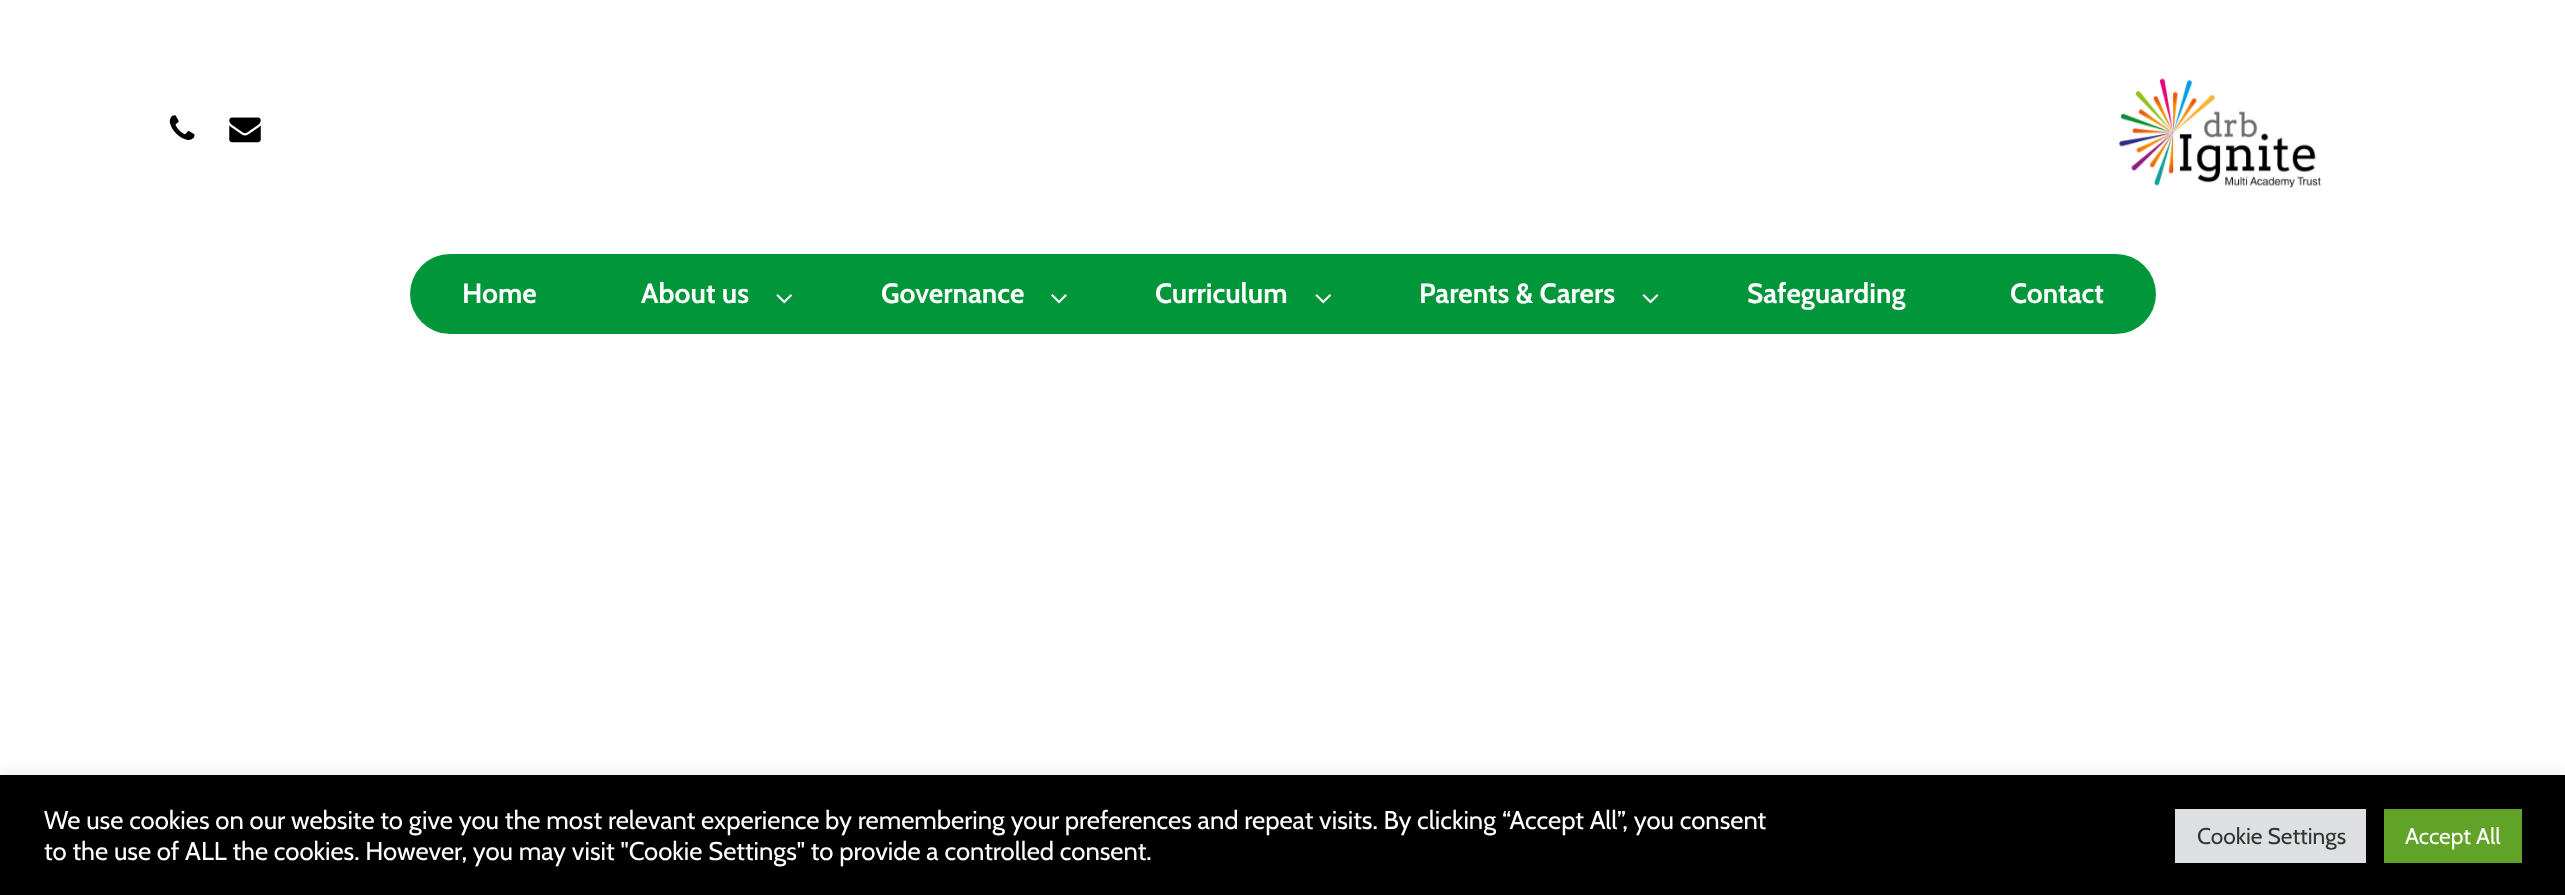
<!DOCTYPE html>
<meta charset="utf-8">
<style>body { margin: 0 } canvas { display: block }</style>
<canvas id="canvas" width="2565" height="895"></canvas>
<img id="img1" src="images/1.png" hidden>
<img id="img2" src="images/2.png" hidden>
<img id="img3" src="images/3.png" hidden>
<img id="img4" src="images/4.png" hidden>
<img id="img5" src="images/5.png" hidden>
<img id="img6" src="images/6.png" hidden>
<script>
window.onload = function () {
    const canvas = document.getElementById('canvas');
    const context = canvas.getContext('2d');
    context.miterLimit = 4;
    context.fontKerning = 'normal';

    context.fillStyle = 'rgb(255, 255, 255)';
    context.fillRect(0, 0, 2565, 895);
    context.drawImage(document.getElementById('img1'), 169, 115, 26, 25);
    context.drawImage(document.getElementById('img2'), 229, 117, 32, 26);
    context.drawImage(document.getElementById('img3'), 2119, 78, 202, 110);
    context.fillStyle = 'rgb(0, 150, 57)';
    context.beginPath();
    context.roundRect(410, 254, 1746, 80, 40);
    context.fill();
    context.drawImage(document.getElementById('img4'), 776, 294, 16, 10);
    context.drawImage(document.getElementById('img5'), 1051, 294, 16, 10);
    context.drawImage(document.getElementById('img4'), 1315, 294, 16, 10);
    context.drawImage(document.getElementById('img6'), 1642, 294, 17, 10);
    context.fillStyle = 'rgba(172, 171, 171, 0.3)';
    context.filter = 'blur(9px)';
    context.beginPath();
    context.rect(0, 774, 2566, 120);
    context.fill();
    context.filter = 'none';
    context.fillStyle = 'rgb(0, 0, 0)';
    context.fillRect(0, 775, 2565, 120);
    context.fillStyle = 'rgb(222, 223, 224)';
    context.fillRect(2175, 809, 191, 54);
    context.fillStyle = 'rgb(97, 162, 41)';
    context.fillRect(2384, 809, 138, 54);
    context.font = 'bold 28px Cabin';
    context.fillStyle = 'rgb(255, 255, 255)';
    context.fillText('Home', 462, 303);
    context.fillText('About us', 641, 303);
    context.fillText('Governance', 881, 303);
    context.fillText('Curriculum', 1155, 303);
    context.fillText('Parents & Carers', 1419, 303);
    context.fillText('Safeguarding', 1747, 303);
    context.fillText('Contact', 2010, 303);
    context.font = '25.67px Cabin';
    context.fillText('We use cookies on our website to give you the most relevant experience by remembering your preferences and repeat visits. By clicking “Accept All”, you consent', 44, 829);
    context.fillText('to the use of ALL the cookies. However, you may visit "Cookie Settings" to provide a controlled consent.', 44, 860);
    context.font = '22.75px Cabin';
    context.fillStyle = 'rgb(51, 51, 51)';
    context.fillText('Cookie Settings', 2197, 844);
    context.fillStyle = 'rgb(255, 255, 255)';
    context.fillText('Accept All', 2405, 844);
};
</script>
